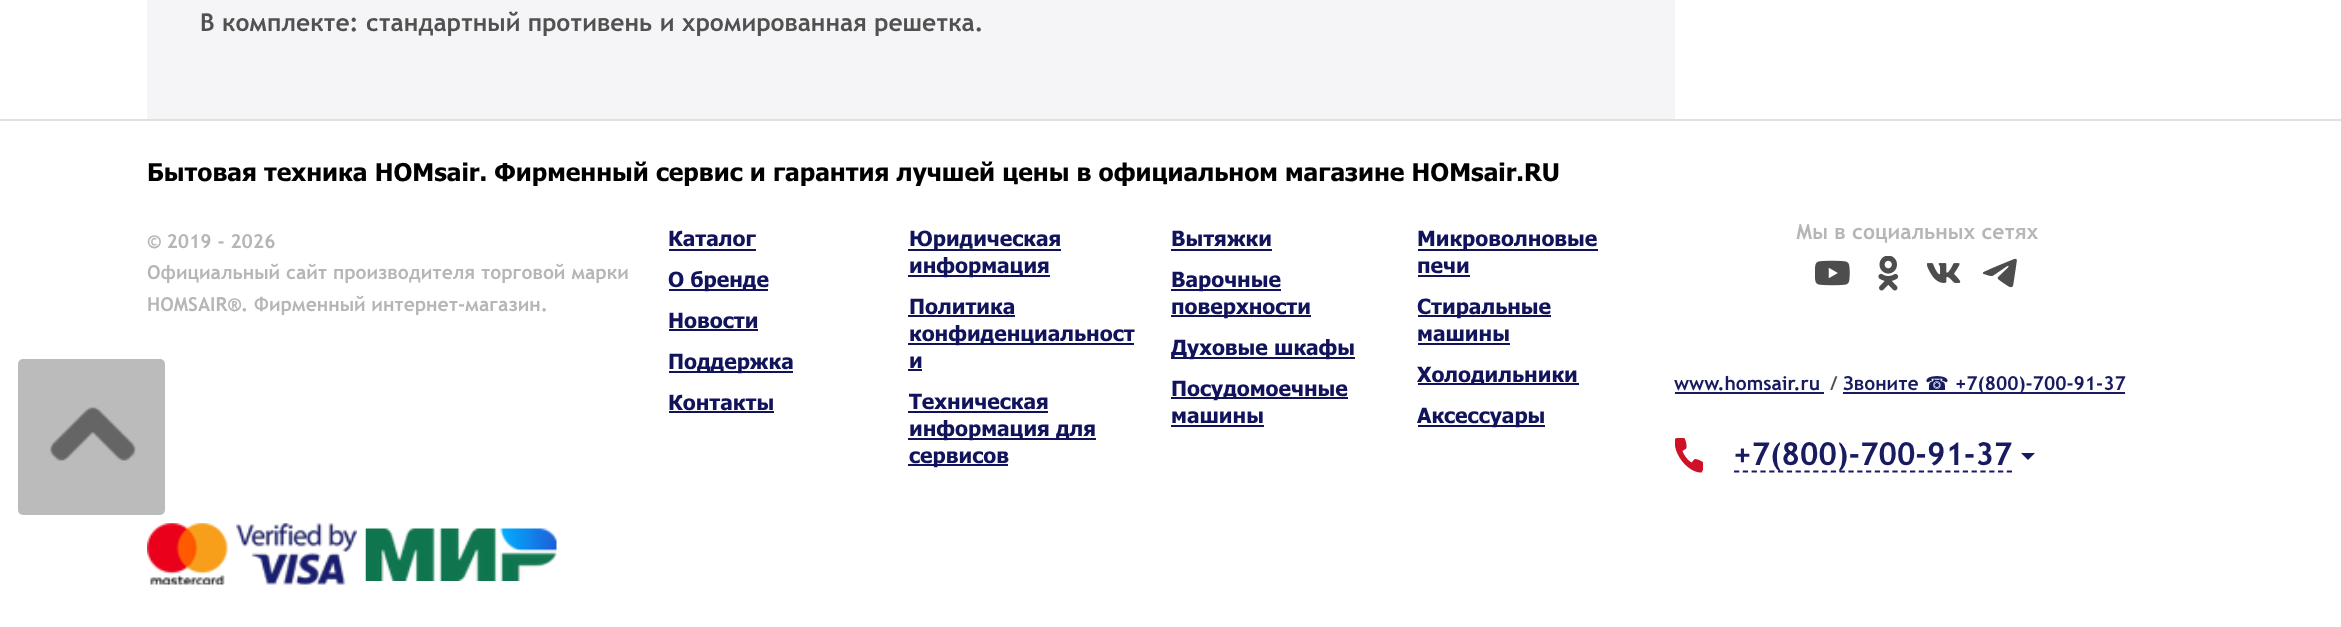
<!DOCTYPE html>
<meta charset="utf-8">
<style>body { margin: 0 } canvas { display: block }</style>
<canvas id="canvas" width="2341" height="627"></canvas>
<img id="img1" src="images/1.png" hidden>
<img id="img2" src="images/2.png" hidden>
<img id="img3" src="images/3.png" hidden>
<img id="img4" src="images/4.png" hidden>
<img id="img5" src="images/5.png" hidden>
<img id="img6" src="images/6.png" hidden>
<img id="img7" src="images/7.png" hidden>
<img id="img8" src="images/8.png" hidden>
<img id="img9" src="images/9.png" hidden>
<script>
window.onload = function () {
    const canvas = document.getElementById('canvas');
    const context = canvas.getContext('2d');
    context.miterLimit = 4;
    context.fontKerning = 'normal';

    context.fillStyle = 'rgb(255, 255, 255)';
    context.fillRect(0, 0, 2341, 627);
    context.fillStyle = 'rgb(245, 245, 248)';
    context.fillRect(147, 0, 1528, 119);
    context.fillStyle = 'rgb(187, 187, 187)';
    context.beginPath();
    context.roundRect(18, 359, 147, 156, 5);
    context.fill();
    context.drawImage(document.getElementById('img1'), 50, 407, 86, 54);
    context.fillStyle = 'rgb(227, 223, 223)';
    context.fillRect(0, 119, 2341, 2);
    context.fillStyle = 'rgb(18, 20, 91)';
    context.fillRect(669, 249, 87, 2);
    context.fillRect(908, 249, 153, 2);
    context.fillRect(908, 275, 142, 2);
    context.fillRect(669, 289, 99, 2);
    context.fillRect(669, 329, 89, 2);
    context.fillRect(908, 315, 107, 2);
    context.fillRect(908, 343, 226, 2);
    context.fillRect(908, 369, 14, 2);
    context.fillRect(669, 371, 124, 2);
    context.fillRect(669, 411, 105, 2);
    context.fillRect(908, 411, 140, 2);
    context.fillRect(908, 438, 188, 2);
    context.fillRect(908, 464, 100, 2);
    context.fillRect(1171, 249, 101, 2);
    context.fillRect(1418, 249, 180, 2);
    context.fillRect(1418, 275, 52, 2);
    context.fillRect(1171, 289, 110, 2);
    context.fillRect(1171, 315, 140, 2);
    context.fillRect(1418, 315, 133, 2);
    context.fillRect(1418, 343, 92, 2);
    context.fillRect(1171, 357, 184, 2);
    context.fillRect(1418, 383, 161, 2);
    context.fillRect(1171, 397, 177, 2);
    context.fillRect(1171, 425, 93, 2);
    context.fillRect(1418, 425, 127, 2);
    context.drawImage(document.getElementById('img2'), 1815, 260, 35, 26);
    context.drawImage(document.getElementById('img3'), 1878, 256, 21, 35);
    context.drawImage(document.getElementById('img4'), 1927, 263, 34, 20);
    context.drawImage(document.getElementById('img5'), 1983, 258, 34, 30);
    context.fillStyle = 'rgb(25, 27, 96)';
    context.fillRect(1675, 392, 149, 2);
    context.fillRect(1843, 392, 282, 2);
    context.drawImage(document.getElementById('img6'), 1675, 438, 28, 35);
    context.beginPath();
    context.moveTo(1734, 471.5);
    context.lineTo(2012.5, 471.5);
    context.strokeStyle = 'rgb(25, 27, 96)';
    context.lineWidth = 1.8;
    context.setLineDash([5.25, 3.55]);
    context.stroke();
    context.beginPath();
    context.moveTo(2021, 453);
    context.lineTo(2035, 453);
    context.lineTo(2028, 460);
    context.closePath();
    context.fill();
    context.drawImage(document.getElementById('img7'), 147, 523, 81, 62);
    context.drawImage(document.getElementById('img8'), 236, 523, 121, 62);
    context.drawImage(document.getElementById('img9'), 365, 528, 192, 53);
    context.font = 'bold 24.5px Trebuchet MS';
    context.fillStyle = 'rgb(81, 81, 81)';
    context.fillText('В комплекте: стандартный противень и хромированная решетка.', 200, 31);
    context.font = 'bold 24.5px Tahoma';
    context.fillStyle = 'rgb(0, 0, 0)';
    context.fillText('Бытовая техника HOMsair. Фирменный сервис и гарантия лучшей цены в официальном магазине HOMsair.RU', 147, 181);
    context.font = 'bold 19.25px Trebuchet MS';
    context.fillStyle = 'rgb(182, 182, 182)';
    context.fillText('© 2019 - 2026', 147, 248);
    context.fillText('Официальный сайт производителя торговой марки', 147, 279);
    context.fillText('HOMSAIR®. Фирменный интернет-магазин.', 147, 311);
    context.font = 'bold 21px Tahoma';
    context.fillStyle = 'rgb(18, 20, 91)';
    context.fillText('Каталог', 668, 246);
    context.fillText('Юридическая', 909, 246);
    context.fillText('информация', 909, 273);
    context.fillText('О бренде', 668, 287);
    context.fillText('Новости', 668, 328);
    context.fillText('Политика', 909, 314);
    context.fillText('конфиденциальност', 909, 341);
    context.fillText('и', 909, 368);
    context.fillText('Поддержка', 668, 369);
    context.fillText('Контакты', 668, 410);
    context.fillText('Техническая', 909, 409);
    context.fillText('информация для', 909, 436);
    context.fillText('сервисов', 909, 463);
    context.fillText('Вытяжки', 1171, 246);
    context.fillText('Микроволновые', 1417, 246);
    context.fillText('печи', 1417, 273);
    context.fillText('Варочные', 1171, 287);
    context.fillText('поверхности', 1171, 314);
    context.fillText('Стиральные', 1417, 314);
    context.fillText('машины', 1417, 341);
    context.fillText('Духовые шкафы', 1171, 355);
    context.fillText('Холодильники', 1417, 382);
    context.fillText('Посудомоечные', 1171, 396);
    context.fillText('машины', 1171, 423);
    context.fillText('Аксессуары', 1417, 423);
    context.font = 'bold 21px Trebuchet MS';
    context.fillStyle = 'rgb(182, 182, 182)';
    context.fillText('Мы в социальных сетях', 1796, 239);
    context.font = 'bold 19.25px Trebuchet MS';
    context.fillStyle = 'rgb(25, 27, 96)';
    context.fillText('www.homsair.ru', 1674, 390);
    context.fillStyle = 'rgb(81, 81, 81)';
    context.fillText('/', 1830, 390);
    context.fillStyle = 'rgb(25, 27, 96)';
    context.fillText('Звоните', 1843, 390);
    context.font = '19.25px DejaVu Sans';
    context.fillText('☎', 1925, 390);
    context.font = 'bold 19.25px Trebuchet MS';
    context.fillText('+7(800)-700-91-37', 1955, 390);
    context.font = 'bold 31.5px Trebuchet MS';
    context.fillText('+7(800)-700-91-37', 1733, 465);
};
</script>
